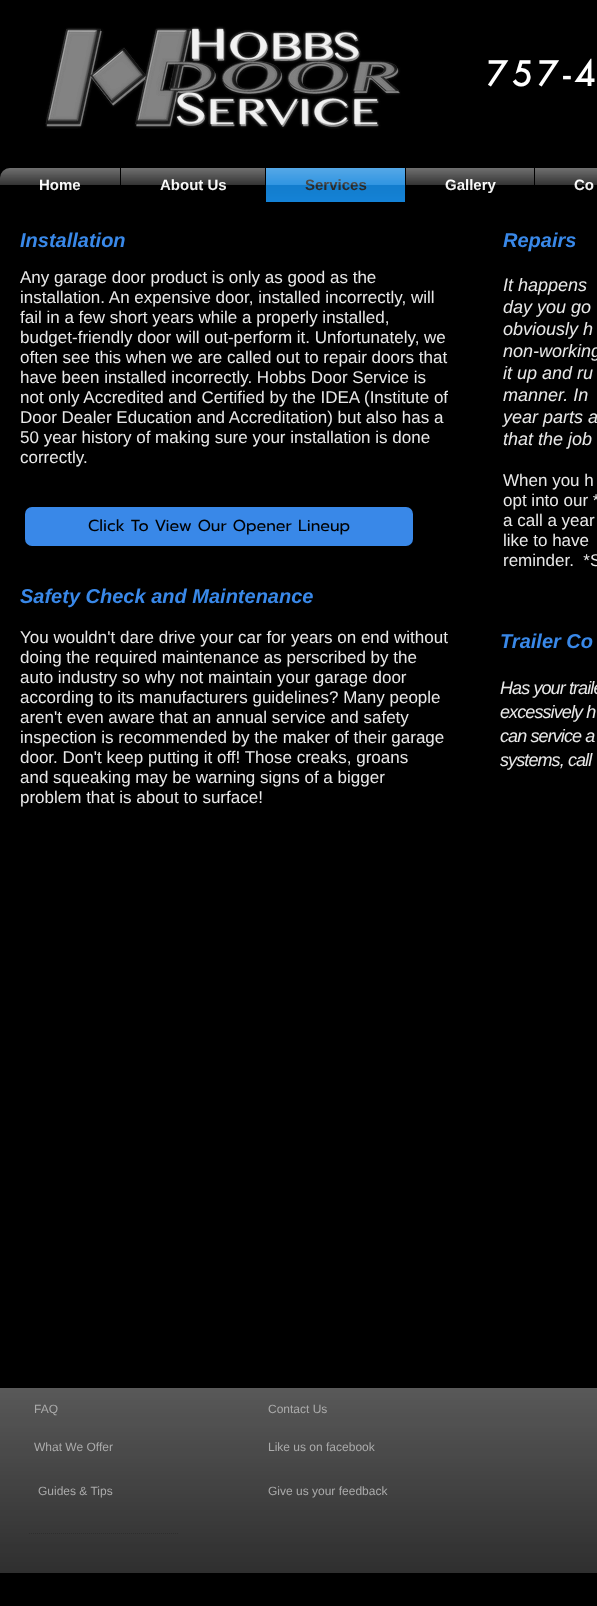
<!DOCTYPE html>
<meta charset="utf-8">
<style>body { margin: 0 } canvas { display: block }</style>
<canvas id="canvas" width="597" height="1606"></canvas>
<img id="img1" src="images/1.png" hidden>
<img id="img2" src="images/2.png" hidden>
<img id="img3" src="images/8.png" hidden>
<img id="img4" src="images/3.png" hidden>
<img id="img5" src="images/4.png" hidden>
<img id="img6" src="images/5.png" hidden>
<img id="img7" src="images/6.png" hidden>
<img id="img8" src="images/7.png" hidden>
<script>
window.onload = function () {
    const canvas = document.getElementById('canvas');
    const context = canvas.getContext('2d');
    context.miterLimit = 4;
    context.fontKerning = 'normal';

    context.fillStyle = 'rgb(0, 0, 0)';
    context.fillRect(0, 0, 597, 1606);
    context.drawImage(document.getElementById('img1'), 45, 26, 356, 103);
    context.drawImage(document.getElementById('img2'), 0, 168, 597, 17);
    context.fillStyle = 'rgba(0, 0, 0, 0.2)';
    context.beginPath();
    context.roundRect(0, 168, 120, 34, [10, 0, 0, 10]);
    context.fill();
    context.fillRect(121, 168, 144, 17);
    context.fillStyle = 'rgb(0, 0, 0)';
    context.fillRect(120, 168, 1, 17);
    context.fillStyle = 'rgb(21, 135, 222)';
    context.fillRect(266, 168, 139, 34);
    context.fillStyle = 'rgb(0, 0, 0)';
    context.fillRect(265, 168, 1, 17);
    context.fillStyle = 'rgba(0, 0, 0, 0.2)';
    context.fillRect(406, 168, 128, 17);
    context.fillStyle = 'rgb(0, 0, 0)';
    context.fillRect(405, 168, 1, 17);
    context.fillStyle = 'rgba(0, 0, 0, 0.2)';
    context.fillRect(535, 168, 62, 17);
    context.fillStyle = 'rgb(0, 0, 0)';
    context.fillRect(534, 168, 1, 17);
    context.fillStyle = 'rgb(57, 136, 232)';
    context.beginPath();
    context.roundRect(25, 507, 388, 39, 7);
    context.fill();
    context.fillStyle = 'rgb(31, 31, 31)';
    context.fillRect(0, 1388, 597, 185);
    context.drawImage(document.getElementById('img3'), 0, 1388, 597, 185);
    context.beginPath();
    context.moveTo(29, 1533.5);
    context.lineTo(179, 1533.5);
    context.strokeStyle = 'rgb(45, 45, 45)';
    context.setLineDash([1, 1]);
    context.stroke();
    context.letterSpacing = '5px';
    context.font = 'bold 33px futura';
    context.fillStyle = 'rgb(255, 255, 255)';
    context.fillText('757-4', 487, 86);
    context.letterSpacing = '0px';
    context.font = 'bold 15px Liberation Sans';
    context.fillText('Home', 39, 190);
    context.drawImage(document.getElementById('img4'), 0, 168, 120, 22);
    context.fillText('About Us', 160, 190);
    context.drawImage(document.getElementById('img5'), 121, 168, 144, 22);
    context.fillStyle = 'rgb(45, 45, 45)';
    context.fillText('Services', 305, 190);
    context.drawImage(document.getElementById('img6'), 266, 168, 139, 34);
    context.fillStyle = 'rgb(255, 255, 255)';
    context.fillText('Gallery', 445, 190);
    context.drawImage(document.getElementById('img7'), 406, 168, 128, 25);
    context.fillText('Co', 574, 190);
    context.drawImage(document.getElementById('img8'), 535, 168, 62, 22);
    context.font = 'italic bold 20px Liberation Sans';
    context.fillStyle = 'rgb(57, 136, 232)';
    context.fillText('Installation', 20, 247);
    context.font = '17px Liberation Sans';
    context.fillStyle = 'rgb(232, 232, 232)';
    context.fillText('Any garage door product is only as good as the', 20, 283);
    context.fillText('installation. An expensive door, installed incorrectly, will', 20, 303);
    context.fillText('fail in a few short years while a properly installed,', 20, 323);
    context.fillText('budget-friendly door will out-perform it. Unfortunately, we', 20, 343);
    context.fillText('often see this when we are called out to repair doors that', 20, 363);
    context.fillText('have been installed incorrectly. Hobbs Door Service is', 20, 383);
    context.fillText('not only Accredited and Certified by the IDEA (Institute of', 20, 403);
    context.fillText('Door Dealer Education and Accreditation) but also has a', 20, 423);
    context.fillText('50 year history of making sure your installation is done', 20, 443);
    context.fillText('correctly.', 20, 463);
    context.font = 'italic bold 20px Liberation Sans';
    context.fillStyle = 'rgb(57, 136, 232)';
    context.fillText('Repairs', 503, 247);
    context.font = 'italic 18px Liberation Sans';
    context.fillStyle = 'rgb(232, 232, 232)';
    context.fillText('It happens', 503, 291);
    context.fillText('day you go', 503, 313);
    context.fillText('obviously h', 503, 335);
    context.fillText('non-working', 503, 357);
    context.fillText('it up and ru', 503, 379);
    context.fillText('manner. In', 503, 401);
    context.fillText('year parts a', 503, 423);
    context.fillText('that the job', 503, 445);
    context.font = '17px Liberation Sans';
    context.fillText('When you h', 503, 486);
    context.fillText('opt into our *', 503, 506);
    context.fillText('a call a year', 503, 526);
    context.fillText('like to have', 503, 546);
    context.fillText('reminder.  *S', 503, 566);
    context.font = '16px Prompt';
    context.fillStyle = 'rgb(0, 0, 0)';
    context.fillText('Click To View Our Opener Lineup', 88, 531);
    context.font = 'italic bold 20px Liberation Sans';
    context.fillStyle = 'rgb(57, 136, 232)';
    context.fillText('Safety Check and Maintenance', 20, 603);
    context.font = '17px Liberation Sans';
    context.fillStyle = 'rgb(232, 232, 232)';
    context.fillText('You wouldn\'t dare drive your car for years on end without', 20, 643);
    context.fillText('doing the required maintenance as perscribed by the', 20, 663);
    context.fillText('auto industry so why not maintain your garage door', 20, 683);
    context.fillText('according to its manufacturers guidelines? Many people', 20, 703);
    context.fillText('aren\'t even aware that an annual service and safety', 20, 723);
    context.fillText('inspection is recommended by the maker of their garage', 20, 743);
    context.fillText('door. Don\'t keep putting it off! Those creaks, groans', 20, 763);
    context.fillText('and squeaking may be warning signs of a bigger', 20, 783);
    context.fillText('problem that is about to surface!', 20, 803);
    context.font = 'italic bold 20px Liberation Sans';
    context.fillStyle = 'rgb(57, 136, 232)';
    context.fillText('Trailer Co', 500, 648);
    context.letterSpacing = '-0.9px';
    context.font = 'italic 18px Liberation Sans';
    context.fillStyle = 'rgb(232, 232, 232)';
    context.fillText('Has your traile', 500, 694);
    context.fillText('excessively h', 500, 718);
    context.fillText('can service a', 500, 742);
    context.fillText('systems, call', 500, 766);
    context.letterSpacing = '0px';
    context.font = '12px Liberation Sans';
    context.fillStyle = 'rgb(171, 171, 171)';
    context.fillText('FAQ', 34, 1413);
    context.fillText('Contact Us', 268, 1413);
    context.fillText('What We Offer', 34, 1451);
    context.fillText('Like us on facebook', 268, 1451);
    context.fillText('Guides & Tips', 38, 1495);
    context.fillText('Give us your feedback', 268, 1495);
};
</script>
